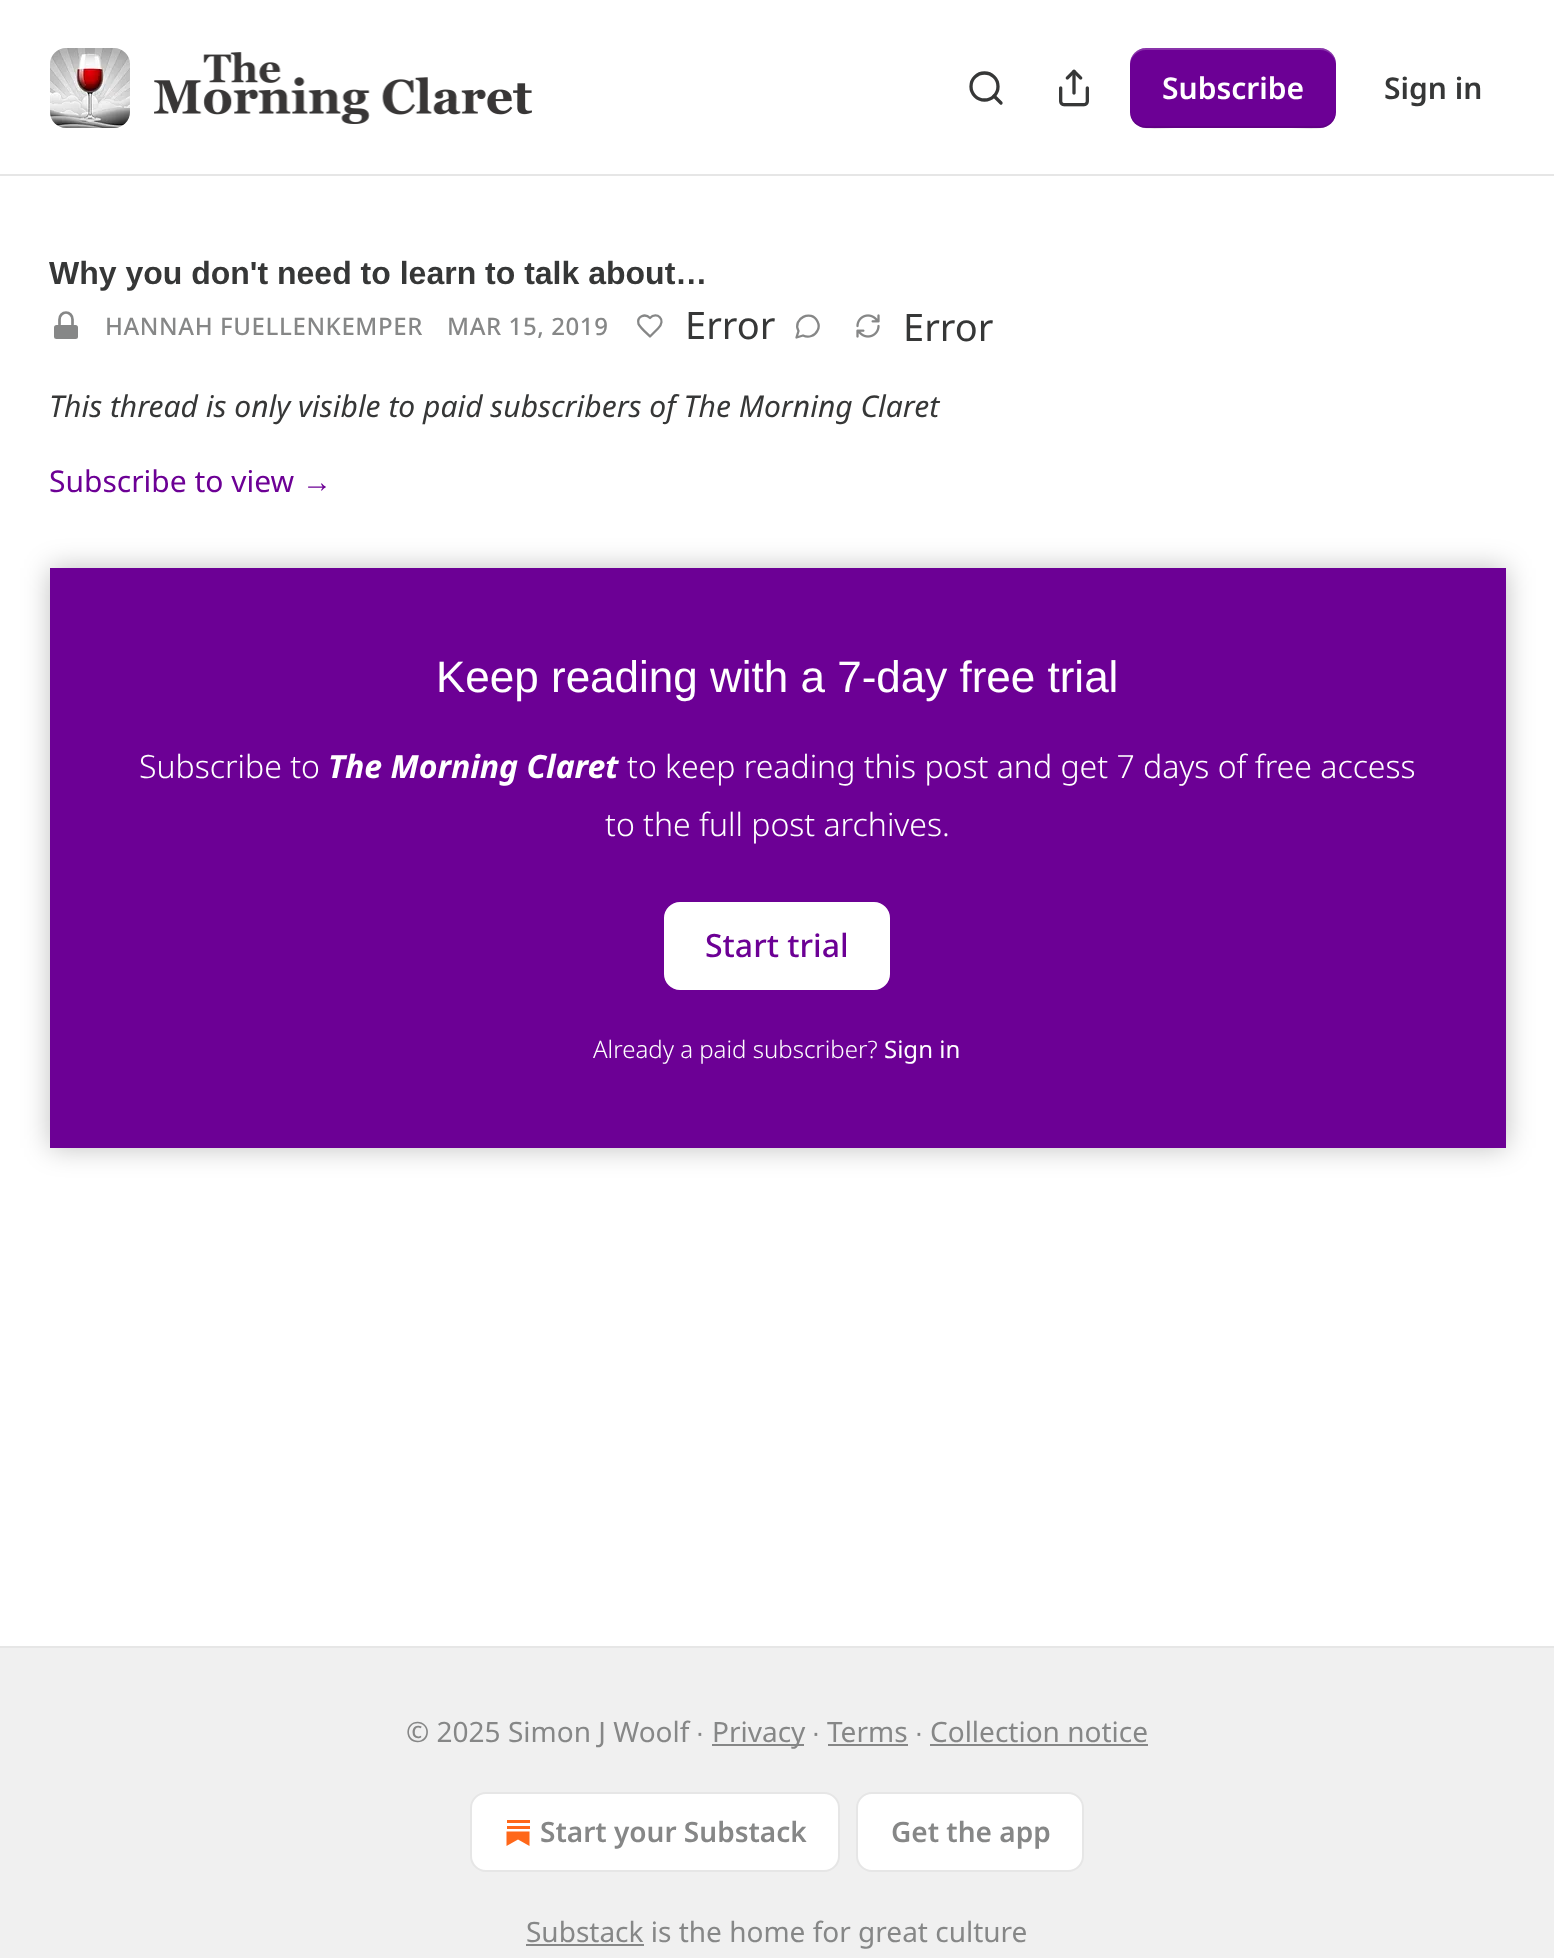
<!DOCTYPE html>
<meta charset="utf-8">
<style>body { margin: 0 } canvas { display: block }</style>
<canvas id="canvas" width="1554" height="1958"></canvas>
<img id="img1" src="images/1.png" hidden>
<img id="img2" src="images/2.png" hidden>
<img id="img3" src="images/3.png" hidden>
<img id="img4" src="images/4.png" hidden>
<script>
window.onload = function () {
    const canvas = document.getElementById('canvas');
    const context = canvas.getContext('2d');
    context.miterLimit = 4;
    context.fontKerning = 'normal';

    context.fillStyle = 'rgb(255, 255, 255)';
    context.fillRect(0, 0, 1554, 1958);
    context.fillStyle = 'rgb(230, 230, 230)';
    context.fillRect(0, 174, 1554, 2);
    context.drawImage(document.getElementById('img1'), 50, 48, 80, 80);
    context.drawImage(document.getElementById('img2'), 154, 52, 378, 72);
    context.beginPath();
    context.arc(984.5, 86.5, 13.5, 0, 2 * Math.PI);
    context.strokeStyle = 'rgb(54, 55, 55)';
    context.lineWidth = 3.3;
    context.stroke();
    context.beginPath();
    context.moveTo(1001, 103);
    context.lineTo(994, 96);
    context.lineCap = 'round';
    context.lineJoin = 'round';
    context.stroke();
    context.drawImage(document.getElementById('img3'), 1059, 69, 30, 38);
    context.fillStyle = 'rgb(108, 0, 149)';
    context.beginPath();
    context.roundRect(1130, 48, 206, 80, 16);
    context.fill();
    context.fillStyle = 'rgba(0, 0, 0, 0.1)';
    context.beginPath();
    context.moveTo(1130, 110);
    context.bezierCurveTo(1130, 135, 1159, 128, 1175, 128);
    context.lineTo(1291, 128);
    context.bezierCurveTo(1307, 128, 1336, 135, 1336, 110);
    context.bezierCurveTo(1336, 119, 1329, 126, 1320, 126);
    context.lineTo(1146, 126);
    context.bezierCurveTo(1137, 126, 1130, 119, 1130, 110);
    context.closePath();
    context.fill();
    context.fillStyle = 'rgba(255, 255, 255, 0.2)';
    context.beginPath();
    context.moveTo(1146, 50);
    context.lineTo(1320, 50);
    context.bezierCurveTo(1329, 50, 1336, 57, 1336, 66);
    context.bezierCurveTo(1336, 41, 1307, 48, 1291, 48);
    context.lineTo(1175, 48);
    context.bezierCurveTo(1159, 48, 1130, 41, 1130, 66);
    context.bezierCurveTo(1130, 57, 1137, 50, 1146, 50);
    context.closePath();
    context.fill();
    context.fillStyle = 'rgb(134, 135, 135)';
    context.beginPath();
    context.roundRect(54, 325, 24, 14, 2.5);
    context.fill();
    context.beginPath();
    context.moveTo(59.5, 324.5);
    context.lineTo(59.5, 319.5);
    context.bezierCurveTo(59.5, 315.5, 62.5, 312.5, 66, 312.5);
    context.bezierCurveTo(69.5, 312.5, 72.5, 315.5, 72.5, 319.5);
    context.lineTo(72.5, 324.5);
    context.strokeStyle = 'rgb(134, 135, 135)';
    context.lineWidth = 2.7;
    context.stroke();
    context.beginPath();
    context.moveTo(658, 328.5);
    context.bezierCurveTo(667, 319.5, 656.5, 311, 650, 318);
    context.bezierCurveTo(645, 313, 636.5, 316.5, 638.5, 324);
    context.bezierCurveTo(640, 327.5, 647.5, 334, 650, 336.5);
    context.closePath();
    context.lineWidth = 2.3;
    context.stroke();
    context.beginPath();
    context.moveTo(803, 335.5);
    context.bezierCurveTo(808.5, 338, 815, 336, 817.5, 330.5);
    context.bezierCurveTo(819, 328, 819, 324.5, 817.5, 321.5);
    context.bezierCurveTo(811.5, 309, 792, 318.5, 798.5, 331);
    context.lineTo(796.5, 337.5);
    context.closePath();
    context.stroke();
    context.drawImage(document.getElementById('img4'), 856, 314, 24, 24);
    context.fillStyle = 'rgb(108, 0, 149)';
    context.fillRect(50, 568, 1456, 580);
    context.fillStyle = 'rgb(255, 255, 255)';
    context.beginPath();
    context.roundRect(665, 903, 224, 86, 15);
    context.fill();
    context.strokeStyle = 'rgb(255, 255, 255)';
    context.lineWidth = 2;
    context.lineJoin = 'miter';
    context.stroke();
    context.save();
    context.beginPath();
    context.moveTo(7, 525);
    context.lineTo(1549, 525);
    context.lineTo(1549, 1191);
    context.lineTo(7, 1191);
    context.closePath();
    context.moveTo(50, 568);
    context.lineTo(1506, 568);
    context.lineTo(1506, 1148);
    context.lineTo(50, 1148);
    context.closePath();
    context.clip('evenodd');
    context.fillStyle = 'rgba(0, 0, 0, 0.25)';
    context.filter = 'blur(14px)';
    context.beginPath();
    context.rect(50, 568, 1456, 580);
    context.fill();
    context.filter = 'none';
    context.restore();
    context.fillStyle = 'rgb(240, 240, 240)';
    context.fillRect(0, 1648, 1554, 310);
    context.fillStyle = 'rgb(230, 230, 230)';
    context.fillRect(0, 1646, 1554, 2);
    context.fillStyle = 'rgb(134, 135, 135)';
    context.fillRect(712, 1744, 92, 2);
    context.fillRect(828, 1744, 80, 2);
    context.fillRect(930, 1744, 218, 2);
    context.fillStyle = 'rgb(255, 255, 255)';
    context.beginPath();
    context.roundRect(471, 1793, 368, 78, 15);
    context.fill();
    context.strokeStyle = 'rgb(230, 230, 230)';
    context.stroke();
    context.fillStyle = 'rgb(255, 103, 25)';
    context.fillRect(507, 1826, 23, 3);
    context.beginPath();
    context.moveTo(506.5, 1831.5);
    context.lineTo(506.5, 1846);
    context.lineTo(518, 1839.5);
    context.lineTo(529.5, 1846);
    context.lineTo(529.5, 1831.5);
    context.closePath();
    context.fill();
    context.fillRect(507, 1820, 23, 3);
    context.fillStyle = 'rgb(255, 255, 255)';
    context.beginPath();
    context.roundRect(857, 1793, 226, 78, 15);
    context.fill();
    context.stroke();
    context.fillStyle = 'rgb(134, 135, 135)';
    context.fillRect(526, 1944, 118, 2);
    context.font = '600 30px Noto Sans';
    context.fillStyle = 'rgb(255, 255, 255)';
    context.fillText('Subscribe', 1162, 99);
    context.fillStyle = 'rgb(54, 55, 55)';
    context.fillText('Sign in', 1384, 99);
    context.font = 'bold 32px Liberation Sans';
    context.fillText('Why you don\'t need to learn to talk about…', 49, 284);
    context.letterSpacing = '0.6px';
    context.font = '500 24px Noto Sans';
    context.fillStyle = 'rgb(134, 135, 135)';
    context.fillText('HANNAH FUELLENKEMPER', 105, 335);
    context.fillText('MAR 15, 2019', 447, 335);
    context.letterSpacing = '0px';
    context.font = '38px Noto Sans';
    context.fillStyle = 'rgb(54, 55, 55)';
    context.fillText('Error', 685, 339);
    context.fillText('Error', 903, 341);
    context.font = 'italic 30px Noto Sans';
    context.fillText('This thread is only visible to paid subscribers of The Morning Claret', 49, 417);
    context.font = '30px Noto Sans';
    context.fillStyle = 'rgb(108, 0, 149)';
    context.fillText('Subscribe to view', 49, 492);
    context.font = '30px Liberation Sans';
    context.fillText('→', 302, 492);
    context.font = '44px Liberation Sans';
    context.fillStyle = 'rgb(255, 255, 255)';
    context.fillText('Keep reading with a 7-day free trial', 436, 692);
    context.font = '300 32px Noto Sans';
    context.fillText('Subscribe to', 139, 778);
    context.font = 'italic bold 32px Noto Sans';
    context.fillText('The Morning Claret', 328, 778);
    context.font = '300 32px Noto Sans';
    context.fillText('to keep reading this post and get 7 days of free access', 627, 778);
    context.fillText('to the full post archives.', 605, 836);
    context.font = '500 32px Noto Sans';
    context.fillStyle = 'rgb(108, 0, 149)';
    context.fillText('Start trial', 705, 957);
    context.font = '300 24px Noto Sans';
    context.fillStyle = 'rgb(255, 255, 255)';
    context.fillText('Already a paid subscriber?', 593, 1058);
    context.font = '24px Noto Sans';
    context.fillText('Sign in', 884, 1058);
    context.font = '28px Noto Sans';
    context.fillStyle = 'rgb(134, 135, 135)';
    context.fillText('© 2025 Simon J Woolf', 406, 1742);
    context.font = '28px Liberation Sans';
    context.fillText('∙', 696, 1742);
    context.font = '28px Noto Sans';
    context.fillText('Privacy', 712, 1742);
    context.font = '28px Liberation Sans';
    context.fillText('∙', 812, 1742);
    context.font = '28px Noto Sans';
    context.fillText('Terms', 827, 1742);
    context.font = '28px Liberation Sans';
    context.fillText('∙', 915, 1742);
    context.font = '28px Noto Sans';
    context.fillText('Collection notice', 930, 1742);
    context.font = '600 28px Noto Sans';
    context.fillText('Start your Substack', 540, 1842);
    context.fillText('Get the app', 891, 1842);
    context.font = '28px Noto Sans';
    context.fillText('Substack is the home for great culture', 526, 1942);
};
</script>
